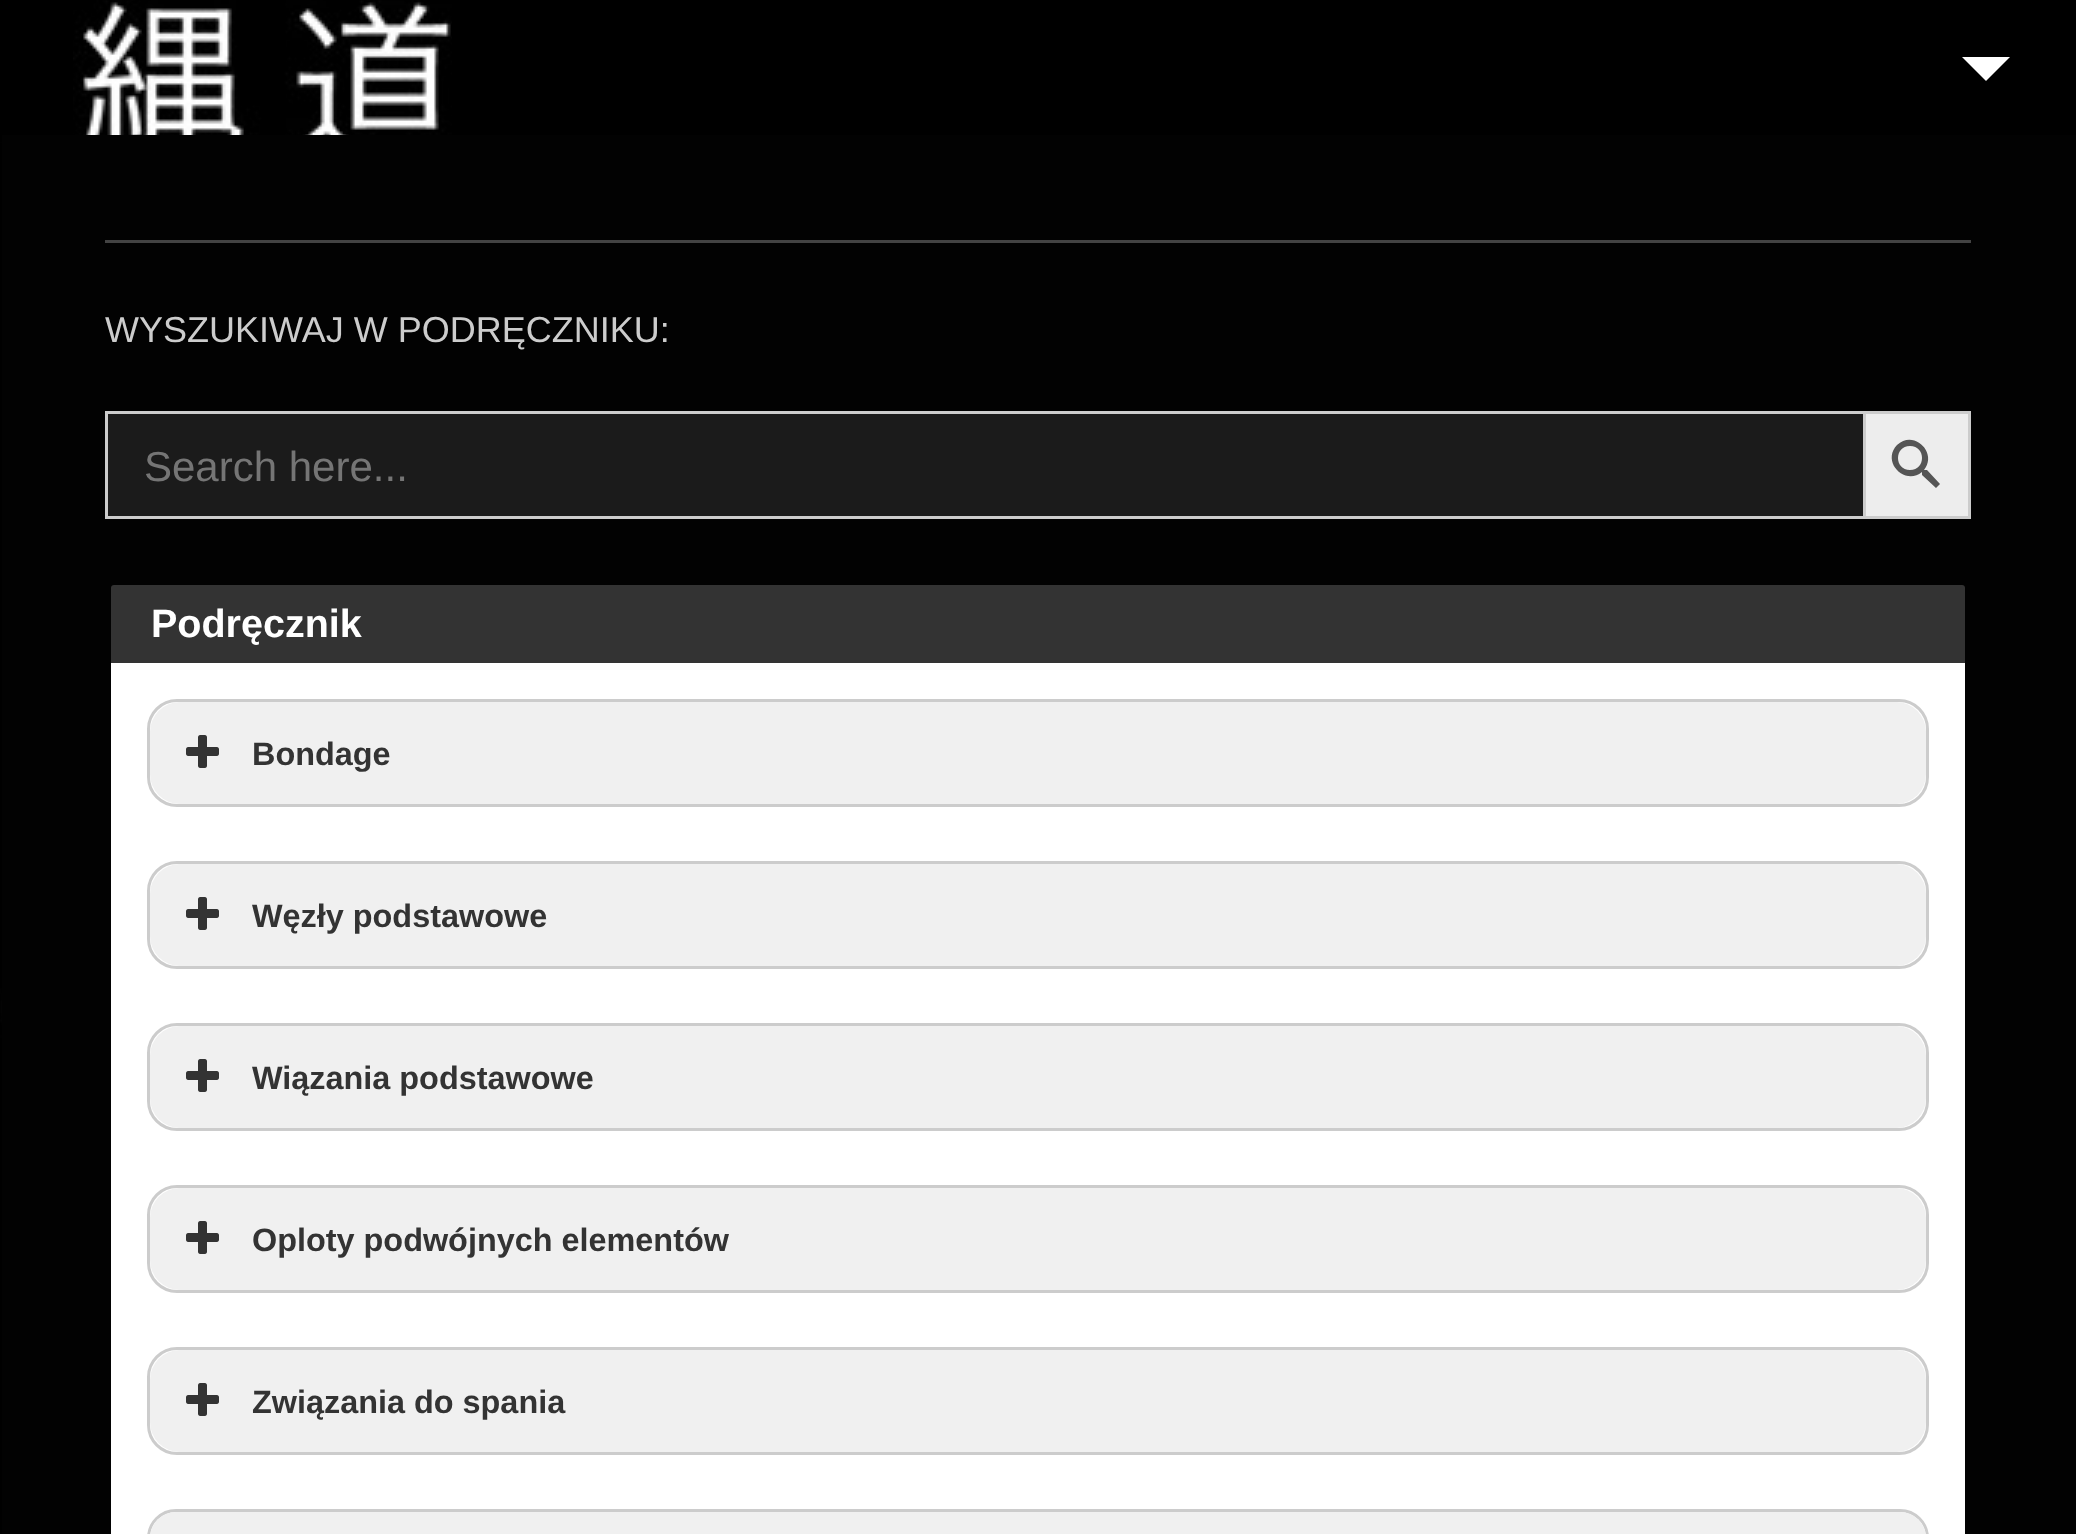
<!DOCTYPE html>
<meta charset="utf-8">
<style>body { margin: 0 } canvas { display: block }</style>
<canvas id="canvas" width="2076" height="1534"></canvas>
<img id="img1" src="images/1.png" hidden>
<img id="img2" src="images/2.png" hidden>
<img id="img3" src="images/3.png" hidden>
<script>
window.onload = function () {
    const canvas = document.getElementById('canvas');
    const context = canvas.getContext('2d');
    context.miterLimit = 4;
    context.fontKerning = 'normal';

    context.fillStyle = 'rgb(255, 255, 255)';
    context.fillRect(0, 0, 2076, 1534);
    context.fillStyle = 'rgb(0, 0, 0)';
    context.fillRect(0, 0, 2076, 135);
    context.drawImage(document.getElementById('img1'), 73, 0, 379, 135);
    context.fillStyle = 'rgb(255, 255, 255)';
    context.beginPath();
    context.moveTo(1962, 57);
    context.lineTo(2010, 57);
    context.lineTo(1986, 81);
    context.closePath();
    context.fill();
    context.drawImage(document.getElementById('img2'), 0, 135, 2, 1399);
    context.fillStyle = 'rgb(2, 2, 2)';
    context.fillRect(2, 135, 2074, 1399);
    context.fillStyle = 'rgb(67, 67, 67)';
    context.fillRect(105, 240, 1866, 3);
    context.fillStyle = 'rgb(27, 27, 27)';
    context.fillRect(108, 414, 1755, 102);
    context.fillStyle = 'rgb(204, 204, 204)';
    context.fillRect(105, 411, 1758, 3);
    context.fillRect(105, 516, 1758, 3);
    context.fillRect(105, 411, 3, 108);
    context.fillStyle = 'rgb(237, 237, 237)';
    context.beginPath();
    context.rect(1864.5, 412.5, 105, 105);
    context.fill();
    context.strokeStyle = 'rgb(204, 204, 204)';
    context.lineWidth = 3;
    context.stroke();
    context.fillStyle = 'rgb(85, 85, 85)';
    context.beginPath();
    context.moveTo(1927, 470);
    context.lineTo(1924, 470);
    context.bezierCurveTo(1938, 453, 1914, 429, 1897, 445);
    context.bezierCurveTo(1881, 462, 1905, 486, 1922, 472);
    context.lineTo(1922, 475);
    context.lineTo(1936, 488);
    context.lineTo(1940, 484);
    context.closePath();
    context.moveTo(1910, 470);
    context.bezierCurveTo(1894, 470, 1894, 446, 1910, 446);
    context.bezierCurveTo(1926, 446, 1926, 470, 1910, 470);
    context.closePath();
    context.fill();
    context.fillStyle = 'rgb(51, 51, 51)';
    context.beginPath();
    context.roundRect(111, 585, 1854, 78, [3, 3, 0, 0]);
    context.fill();
    context.fillStyle = 'rgb(255, 255, 255)';
    context.fillRect(111, 663, 1854, 871);
    context.beginPath();
    context.roundRect(148.5, 700.5, 1779, 105, 28.5);
    context.stroke();
    context.fillStyle = 'rgb(240, 240, 240)';
    context.beginPath();
    context.roundRect(150, 702, 1776, 102, 30);
    context.fill();
    context.drawImage(document.getElementById('img3'), 186, 735, 33, 33);
    context.beginPath();
    context.roundRect(148.5, 862.5, 1779, 105, 28.5);
    context.stroke();
    context.beginPath();
    context.roundRect(150, 864, 1776, 102, 30);
    context.fill();
    context.drawImage(document.getElementById('img3'), 186, 897, 33, 33);
    context.beginPath();
    context.roundRect(148.5, 1024.5, 1779, 105, 28.5);
    context.stroke();
    context.beginPath();
    context.roundRect(150, 1026, 1776, 102, 30);
    context.fill();
    context.drawImage(document.getElementById('img3'), 186, 1059, 33, 33);
    context.beginPath();
    context.roundRect(148.5, 1186.5, 1779, 105, 28.5);
    context.stroke();
    context.beginPath();
    context.roundRect(150, 1188, 1776, 102, 30);
    context.fill();
    context.drawImage(document.getElementById('img3'), 186, 1221, 33, 33);
    context.beginPath();
    context.roundRect(148.5, 1348.5, 1779, 105, 28.5);
    context.stroke();
    context.beginPath();
    context.roundRect(150, 1350, 1776, 102, 30);
    context.fill();
    context.drawImage(document.getElementById('img3'), 186, 1383, 33, 33);
    context.beginPath();
    context.roundRect(148.5, 1510.5, 1779, 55, 28.5);
    context.stroke();
    context.beginPath();
    context.roundRect(150, 1512, 1776, 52, 30);
    context.fill();
    context.font = '36px Liberation Sans';
    context.fillStyle = 'rgb(204, 204, 204)';
    context.fillText('WYSZUKIWAJ W PODRĘCZNIKU:', 105, 342);
    context.font = '42px Liberation Sans';
    context.fillStyle = 'rgb(117, 117, 117)';
    context.fillText('Search here...', 144, 481);
    context.font = 'bold 39.5px Liberation Sans';
    context.fillStyle = 'rgb(255, 255, 255)';
    context.fillText('Podręcznik', 151, 637);
    context.font = 'bold 32.4px Liberation Sans';
    context.fillStyle = 'rgb(51, 51, 51)';
    context.fillText('Bondage', 252, 765);
    context.fillText('Węzły podstawowe', 252, 927);
    context.fillText('Wiązania podstawowe', 252, 1089);
    context.fillText('Oploty podwójnych elementów', 252, 1251);
    context.fillText('Związania do spania', 252, 1413);
};
</script>
